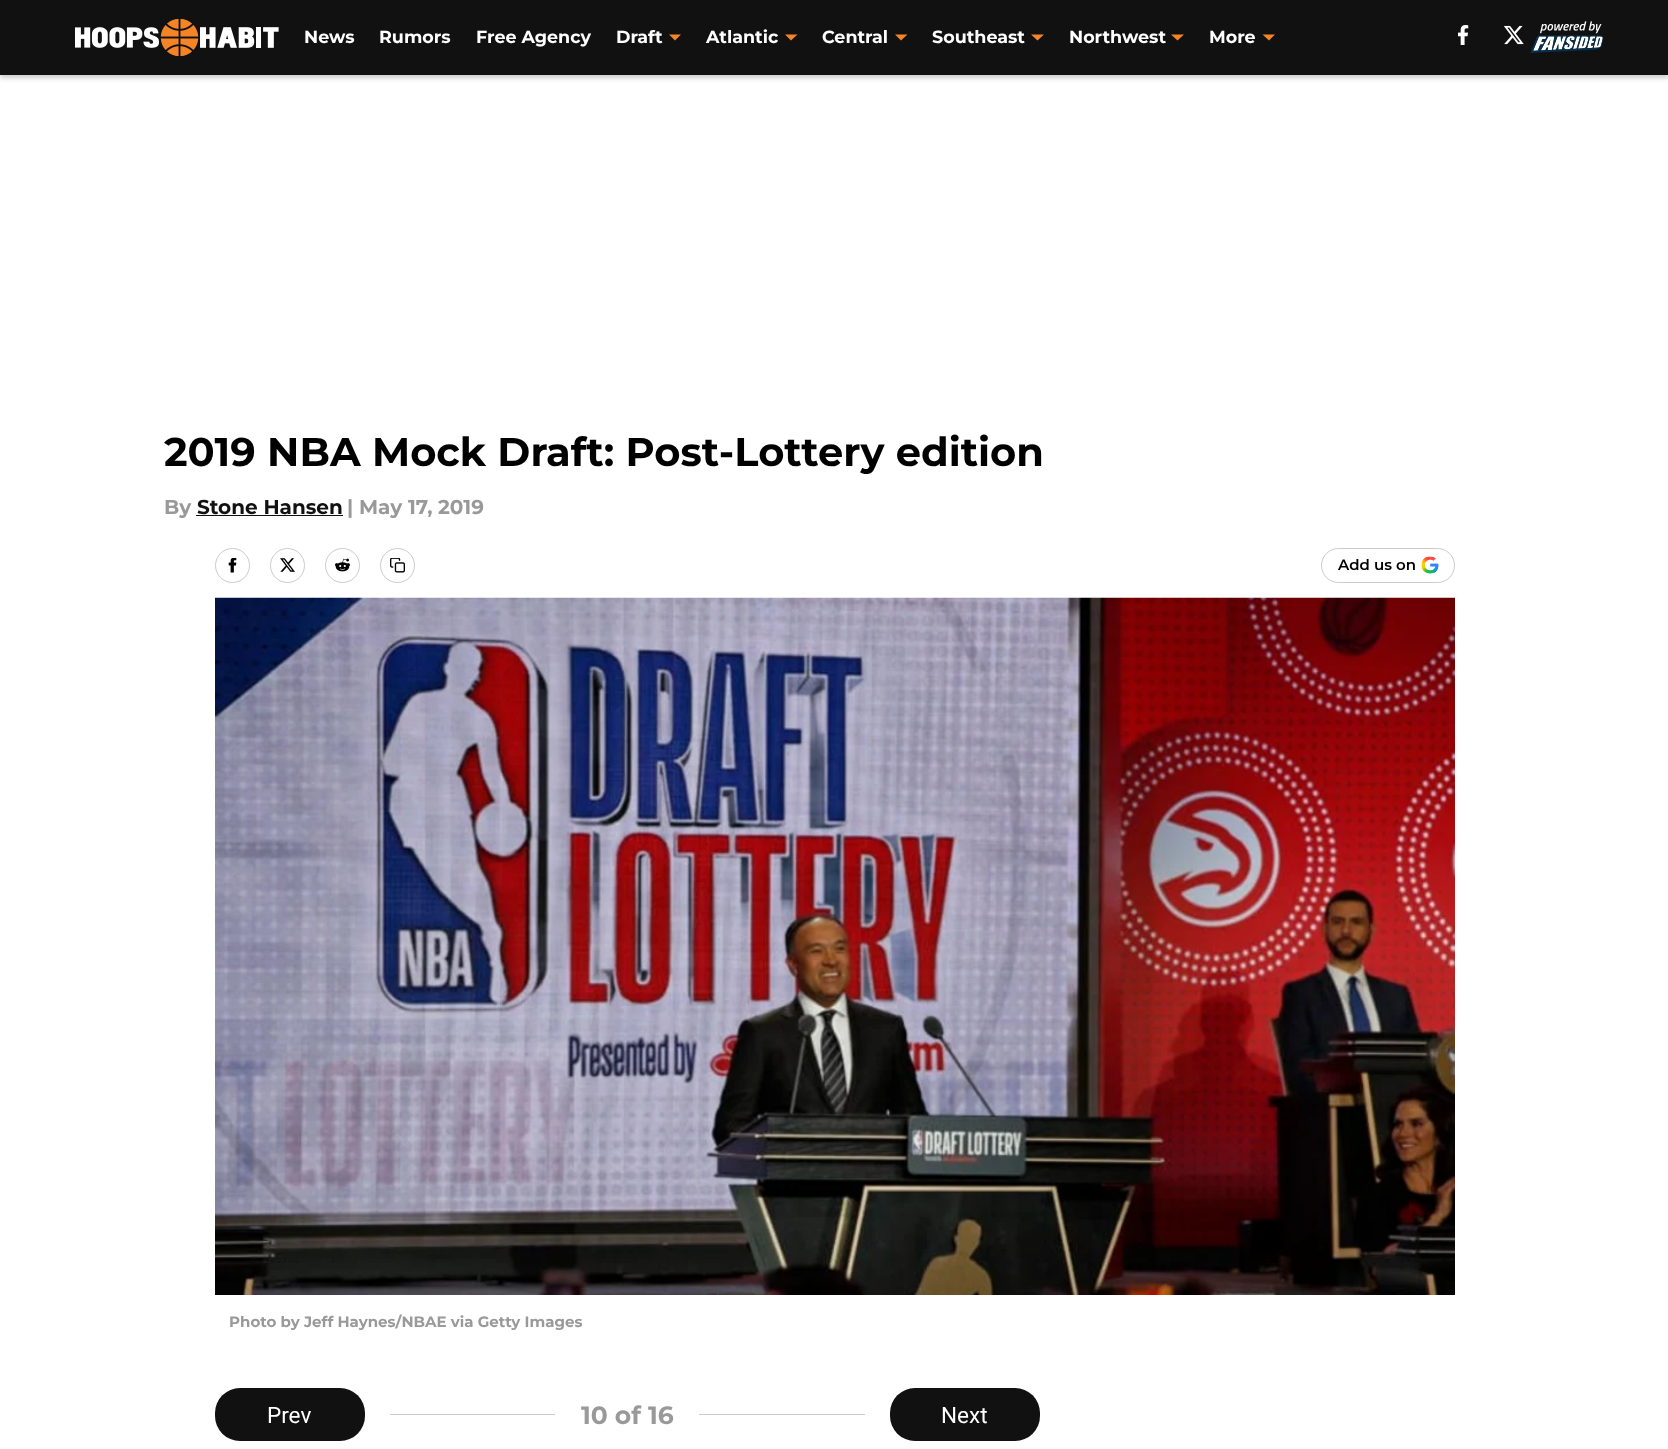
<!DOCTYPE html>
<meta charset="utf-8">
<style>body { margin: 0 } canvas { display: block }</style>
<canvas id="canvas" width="1668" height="1449"></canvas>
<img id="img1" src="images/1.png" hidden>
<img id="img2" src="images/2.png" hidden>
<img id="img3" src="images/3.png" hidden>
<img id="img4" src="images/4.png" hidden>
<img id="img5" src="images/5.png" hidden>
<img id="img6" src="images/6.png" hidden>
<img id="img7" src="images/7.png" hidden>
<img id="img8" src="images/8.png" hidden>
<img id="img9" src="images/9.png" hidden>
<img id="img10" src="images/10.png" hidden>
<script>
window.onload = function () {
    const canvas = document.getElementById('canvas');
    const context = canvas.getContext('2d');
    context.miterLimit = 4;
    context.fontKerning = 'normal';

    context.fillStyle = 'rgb(255, 255, 255)';
    context.fillRect(0, 0, 1668, 1449);
    context.fillStyle = 'rgba(0, 0, 0, 0.2)';
    context.filter = 'blur(2.5px)';
    context.beginPath();
    context.rect(0, 3, 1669, 75);
    context.fill();
    context.filter = 'none';
    context.fillStyle = 'rgb(17, 17, 17)';
    context.fillRect(0, 0, 1668, 75);
    context.drawImage(document.getElementById('img1'), 75, 19, 204, 37);
    context.fillStyle = 'rgb(245, 132, 38)';
    context.beginPath();
    context.moveTo(669, 34.5);
    context.lineTo(675, 40.5);
    context.lineTo(681, 34.5);
    context.closePath();
    context.fill('evenodd');
    context.beginPath();
    context.moveTo(785, 34.5);
    context.lineTo(791, 40.5);
    context.lineTo(797.5, 34.5);
    context.closePath();
    context.fill('evenodd');
    context.beginPath();
    context.moveTo(895, 34.5);
    context.lineTo(901, 40.5);
    context.lineTo(907.5, 34.5);
    context.closePath();
    context.fill('evenodd');
    context.beginPath();
    context.moveTo(1031, 34.5);
    context.lineTo(1037.5, 40.5);
    context.lineTo(1044, 34.5);
    context.closePath();
    context.fill('evenodd');
    context.beginPath();
    context.moveTo(1171, 34.5);
    context.lineTo(1177.5, 40.5);
    context.lineTo(1184, 34.5);
    context.closePath();
    context.fill('evenodd');
    context.beginPath();
    context.moveTo(1262.5, 34.5);
    context.lineTo(1269, 40.5);
    context.lineTo(1275, 34.5);
    context.closePath();
    context.fill('evenodd');
    context.drawImage(document.getElementById('img2'), 1458, 25, 11, 20);
    context.drawImage(document.getElementById('img3'), 1504, 25, 20, 20);
    context.drawImage(document.getElementById('img4'), 1530, 21, 74, 32);
    context.fillStyle = 'rgb(17, 17, 17)';
    context.fillRect(196, 515, 147, 1);
    context.beginPath();
    context.arc(232.5, 565.5, 17, 0, 2 * Math.PI);
    context.strokeStyle = 'rgb(204, 204, 204)';
    context.stroke();
    context.drawImage(document.getElementById('img5'), 228, 558, 9, 15);
    context.beginPath();
    context.arc(287.5, 565.5, 17, 0, 2 * Math.PI);
    context.stroke();
    context.drawImage(document.getElementById('img6'), 280, 558, 15, 14);
    context.beginPath();
    context.arc(342.5, 565.5, 17, 0, 2 * Math.PI);
    context.stroke();
    context.drawImage(document.getElementById('img7'), 335, 558, 15, 14);
    context.beginPath();
    context.arc(397.5, 565.5, 17, 0, 2 * Math.PI);
    context.stroke();
    context.drawImage(document.getElementById('img8'), 390, 558, 15, 15);
    context.beginPath();
    context.roundRect(1321.5, 548.5, 133, 34, 17);
    context.stroke();
    context.drawImage(document.getElementById('img9'), 1421, 556, 18, 18);
    context.drawImage(document.getElementById('img10'), 215, 597, 1240, 698);
    context.beginPath();
    context.roundRect(215, 1388, 150, 53, 25);
    context.fill();
    context.fillStyle = 'rgb(204, 204, 204)';
    context.fillRect(390, 1414, 165, 1);
    context.fillRect(699, 1414, 166, 1);
    context.fillStyle = 'rgb(17, 17, 17)';
    context.beginPath();
    context.roundRect(890, 1388, 150, 53, 25);
    context.fill();
    context.font = '100 17.5px "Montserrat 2"';
    context.fillStyle = 'rgb(255, 255, 255)';
    context.fillText('News', 304, 43);
    context.fillText('Rumors', 379, 43);
    context.fillText('Free Agency', 476, 43);
    context.fillText('Draft', 616, 43);
    context.fillText('Atlantic', 706, 43);
    context.fillText('Central', 822, 43);
    context.fillText('Southeast', 932, 43);
    context.fillText('Northwest', 1069, 43);
    context.fillText('More', 1209, 43);
    context.font = '100 40px "Montserrat 2"';
    context.fillStyle = 'rgb(0, 0, 0)';
    context.fillText('2019 NBA Mock Draft: Post-Lottery edition', 164, 466);
    context.font = '100 20px "Montserrat 2"';
    context.fillStyle = 'rgb(153, 153, 153)';
    context.fillText('By', 164, 514);
    context.fillStyle = 'rgb(17, 17, 17)';
    context.fillText('Stone Hansen', 197, 514);
    context.fillStyle = 'rgb(153, 153, 153)';
    context.fillText('|', 347, 514);
    context.fillText('May 17, 2019', 359, 514);
    context.font = '100 15px Montserrat';
    context.fillStyle = 'rgb(0, 0, 0)';
    context.fillText('Add us on', 1338, 570);
    context.font = '100 15px "Montserrat 2"';
    context.fillStyle = 'rgb(153, 153, 153)';
    context.fillText('Photo by Jeff Haynes/NBAE via Getty Images', 229, 1327);
    context.font = '22.5px Roboto';
    context.fillStyle = 'rgb(255, 255, 255)';
    context.fillText('Prev', 267, 1423);
    context.font = '100 25px "Montserrat 2"';
    context.fillStyle = 'rgb(153, 153, 153)';
    context.fillText('10 of 16', 581, 1424);
    context.font = '22.5px Roboto';
    context.fillStyle = 'rgb(255, 255, 255)';
    context.fillText('Next', 941, 1423);
};
</script>
